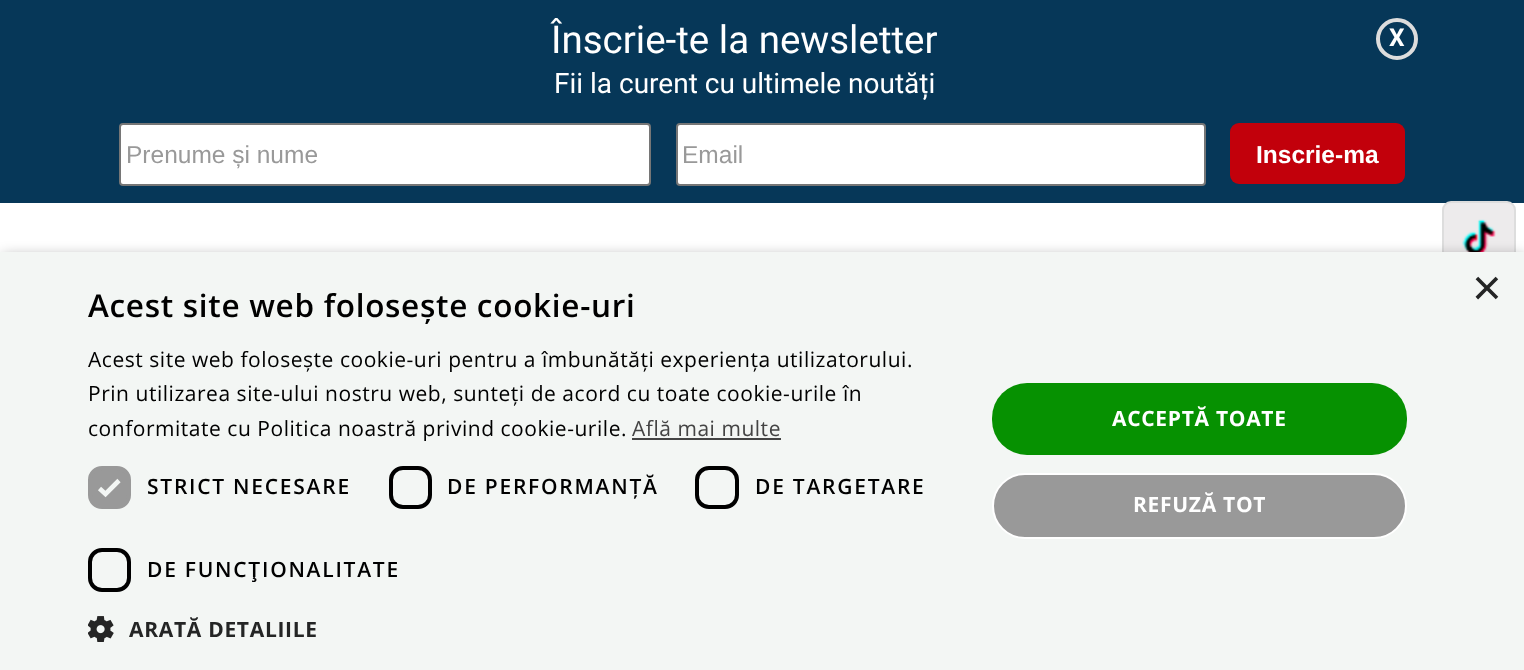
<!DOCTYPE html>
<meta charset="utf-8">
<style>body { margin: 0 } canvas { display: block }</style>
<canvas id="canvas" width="1524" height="670"></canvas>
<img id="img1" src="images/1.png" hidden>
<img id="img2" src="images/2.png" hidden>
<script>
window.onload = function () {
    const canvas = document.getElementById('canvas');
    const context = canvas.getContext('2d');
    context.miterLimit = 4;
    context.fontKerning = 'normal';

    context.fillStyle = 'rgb(255, 255, 255)';
    context.fillRect(0, 0, 1524, 670);
    context.fillStyle = 'rgb(6, 55, 88)';
    context.fillRect(0, 0, 1524, 203);
    context.beginPath();
    context.arc(1397, 39, 19, 0, 2 * Math.PI);
    context.strokeStyle = 'rgb(221, 221, 221)';
    context.lineWidth = 4;
    context.stroke();
    context.fillStyle = 'rgb(255, 255, 255)';
    context.beginPath();
    context.roundRect(120, 124, 530, 61, 3);
    context.fill();
    context.strokeStyle = 'rgb(118, 118, 118)';
    context.lineWidth = 2;
    context.stroke();
    context.beginPath();
    context.roundRect(677, 124, 528, 61, 3);
    context.fill();
    context.stroke();
    context.fillStyle = 'rgb(194, 0, 11)';
    context.beginPath();
    context.roundRect(1230, 123, 175, 61, 9);
    context.fill();
    context.fillStyle = 'rgb(237, 235, 236)';
    context.beginPath();
    context.roundRect(1443, 202, 72, 369, 8);
    context.fill();
    context.strokeStyle = 'rgb(221, 221, 221)';
    context.stroke();
    context.drawImage(document.getElementById('img1'), 1462, 219, 34, 33);
    context.fillStyle = 'rgba(0, 0, 0, 0.35)';
    context.filter = 'blur(7px)';
    context.beginPath();
    context.rect(2, 256, 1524, 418);
    context.fill();
    context.filter = 'none';
    context.fillStyle = 'rgb(243, 246, 244)';
    context.fillRect(0, 252, 1524, 418);
    context.fillStyle = 'rgb(68, 68, 68)';
    context.fillRect(632, 438, 149, 2);
    context.fillStyle = 'rgb(153, 153, 153)';
    context.beginPath();
    context.roundRect(90, 468, 39, 39, 12);
    context.fill();
    context.strokeStyle = 'rgb(153, 153, 153)';
    context.lineWidth = 4;
    context.stroke();
    context.beginPath();
    context.moveTo(99.5, 488.5);
    context.lineTo(105.5, 494);
    context.lineTo(119, 480.5);
    context.strokeStyle = 'rgb(243, 246, 244)';
    context.lineWidth = 4.6;
    context.stroke();
    context.beginPath();
    context.roundRect(391, 468, 39, 39, 12);
    context.strokeStyle = 'rgb(0, 0, 0)';
    context.lineWidth = 4;
    context.stroke();
    context.beginPath();
    context.roundRect(697, 468, 40, 39, 12);
    context.stroke();
    context.beginPath();
    context.roundRect(90, 550, 39, 40, 12);
    context.stroke();
    context.drawImage(document.getElementById('img2'), 88, 616, 26, 26);
    context.fillStyle = 'rgb(6, 145, 1)';
    context.beginPath();
    context.roundRect(992, 383, 415, 72, 35);
    context.fill();
    context.fillStyle = 'rgb(153, 153, 153)';
    context.beginPath();
    context.roundRect(993, 474, 413, 64, 32);
    context.fill();
    context.strokeStyle = 'rgb(255, 255, 255)';
    context.lineWidth = 2;
    context.stroke();
    context.font = '38.5px Roboto';
    context.fillStyle = 'rgb(255, 255, 255)';
    context.fillText('Înscrie-te la newsletter', 551, 53);
    context.font = '28px Roboto';
    context.fillText('Fii la curent cu ultimele noutăți', 554, 93);
    context.font = 'bold 24.5px Roboto';
    context.fillText('X', 1389, 46);
    context.font = '24.5px Liberation Sans';
    context.fillStyle = 'rgb(153, 153, 153)';
    context.fillText('Prenume și nume', 126, 163);
    context.fillText('Email', 682, 163);
    context.font = 'bold 24.5px Liberation Sans';
    context.fillStyle = 'rgb(255, 255, 255)';
    context.fillText('Inscrie-ma', 1256, 163);
    context.font = '51px Liberation Sans';
    context.fillStyle = 'rgb(36, 37, 37)';
    context.fillText('×', 1472, 305);
    context.letterSpacing = '0.7px';
    context.font = '600 31.5px Open Sans';
    context.fillStyle = 'rgb(0, 0, 0)';
    context.fillText('Acest site web folosește cookie-uri', 88, 317);
    context.letterSpacing = '0.53px';
    context.font = '21px Open Sans';
    context.fillText('Acest site web folosește cookie-uri pentru a îmbunătăți experiența utilizatorului.', 88, 367);
    context.fillText('Prin utilizarea site-ului nostru web, sunteți de acord cu toate cookie-urile în', 88, 401);
    context.fillText('conformitate cu Politica noastră privind cookie-urile.', 88, 436);
    context.fillStyle = 'rgb(68, 68, 68)';
    context.fillText('Află mai multe', 632, 436);
    context.letterSpacing = '1.75px';
    context.font = '600 21px Open Sans';
    context.fillStyle = 'rgb(0, 0, 0)';
    context.fillText('STRICT NECESARE', 147, 494);
    context.fillText('DE PERFORMANȚĂ', 447, 494);
    context.fillText('DE TARGETARE', 755, 494);
    context.fillText('DE FUNCŢIONALITATE', 147, 577);
    context.letterSpacing = '0.7px';
    context.font = 'bold 21px Open Sans';
    context.fillStyle = 'rgb(36, 37, 37)';
    context.fillText('ARATĂ DETALIILE', 129, 637);
    context.fillStyle = 'rgb(255, 255, 255)';
    context.fillText('ACCEPTĂ TOATE', 1112, 426);
    context.fillText('REFUZĂ TOT', 1133, 512);
};
</script>
